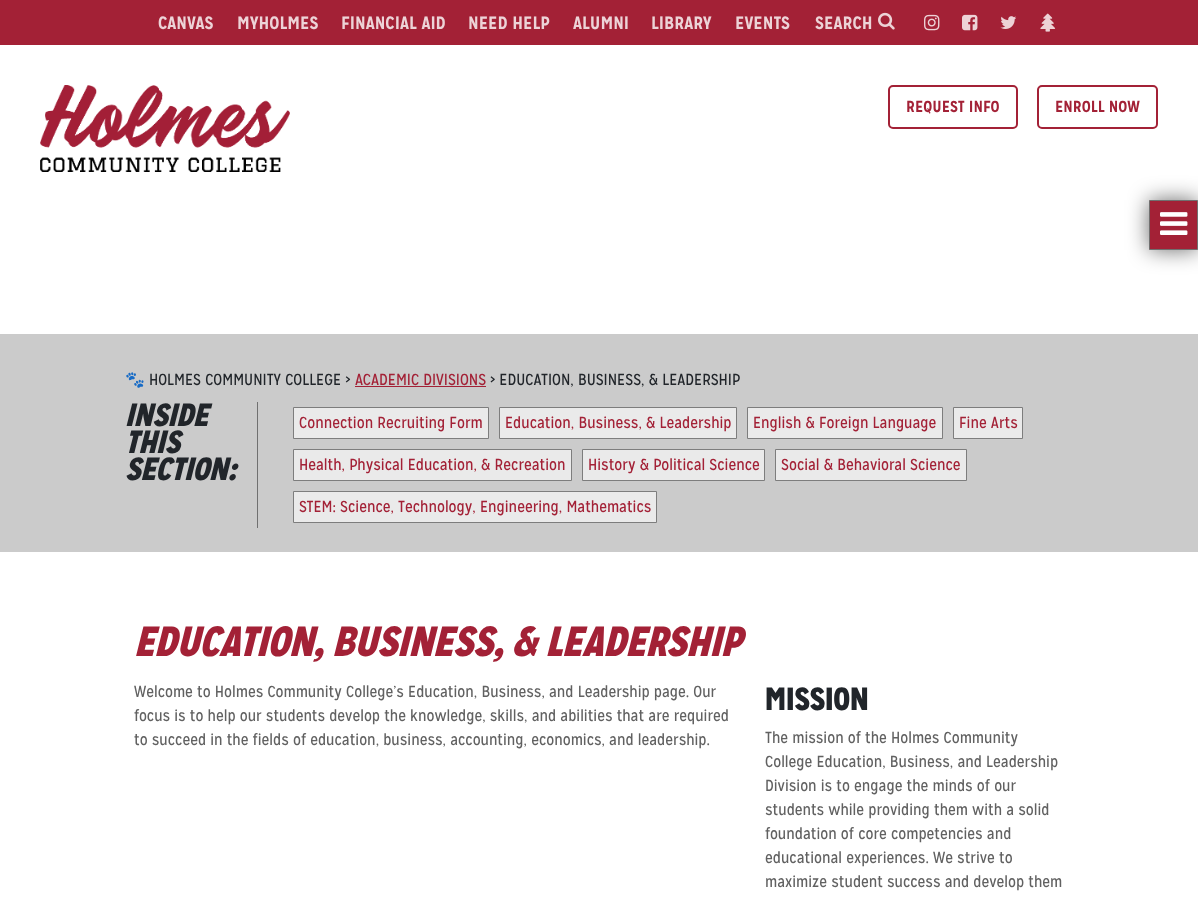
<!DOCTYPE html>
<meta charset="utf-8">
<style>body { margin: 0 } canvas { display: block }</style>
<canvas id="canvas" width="1198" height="903"></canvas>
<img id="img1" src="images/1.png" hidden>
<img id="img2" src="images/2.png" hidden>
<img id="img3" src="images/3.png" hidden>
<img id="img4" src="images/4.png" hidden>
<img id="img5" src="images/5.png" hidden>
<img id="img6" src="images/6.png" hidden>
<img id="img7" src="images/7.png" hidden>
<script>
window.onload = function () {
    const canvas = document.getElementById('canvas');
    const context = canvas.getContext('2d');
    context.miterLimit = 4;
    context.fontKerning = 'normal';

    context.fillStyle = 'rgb(255, 255, 255)';
    context.fillRect(0, 0, 1198, 903);
    context.fillStyle = 'rgb(163, 33, 54)';
    context.fillRect(0, 0, 1198, 45);
    context.drawImage(document.getElementById('img1'), 878, 12, 17, 18);
    context.drawImage(document.getElementById('img2'), 924, 14, 16, 17);
    context.drawImage(document.getElementById('img3'), 962, 14, 16, 17);
    context.drawImage(document.getElementById('img4'), 1000, 16, 17, 13);
    context.drawImage(document.getElementById('img5'), 1040, 13, 16, 19);
    context.drawImage(document.getElementById('img6'), 40, 85, 250, 87);
    context.beginPath();
    context.roundRect(889, 86, 128, 42, 4);
    context.strokeStyle = 'rgb(163, 33, 54)';
    context.lineWidth = 2;
    context.stroke();
    context.beginPath();
    context.roundRect(1038, 86, 119, 42, 4);
    context.stroke();
    context.fillStyle = 'rgb(203, 203, 203)';
    context.fillRect(0, 334, 1198, 218);
    context.fillStyle = 'rgb(163, 33, 54)';
    context.fillRect(355, 386, 131, 1);
    context.fillStyle = 'rgb(112, 112, 112)';
    context.fillRect(257, 402, 1, 126);
    context.fillStyle = 'rgb(234, 234, 234)';
    context.beginPath();
    context.rect(293.5, 407.5, 195, 31);
    context.fill();
    context.strokeStyle = 'rgb(125, 125, 125)';
    context.lineWidth = 1;
    context.stroke();
    context.beginPath();
    context.rect(499.5, 407.5, 237, 31);
    context.fill();
    context.stroke();
    context.beginPath();
    context.rect(747.5, 407.5, 195, 31);
    context.fill();
    context.stroke();
    context.beginPath();
    context.rect(953.5, 407.5, 69, 31);
    context.fill();
    context.stroke();
    context.beginPath();
    context.rect(293.5, 449.5, 278, 31);
    context.fill();
    context.stroke();
    context.beginPath();
    context.rect(582.5, 449.5, 182, 31);
    context.fill();
    context.stroke();
    context.beginPath();
    context.rect(775.5, 449.5, 191, 31);
    context.fill();
    context.stroke();
    context.beginPath();
    context.rect(293.5, 491.5, 363, 31);
    context.fill();
    context.stroke();
    context.fillStyle = 'rgba(0, 0, 0, 0.58)';
    context.filter = 'blur(10.5px)';
    context.beginPath();
    context.rect(1149, 200, 49, 50);
    context.fill();
    context.filter = 'none';
    context.fillStyle = 'rgb(163, 33, 54)';
    context.beginPath();
    context.rect(1149.5, 200.5, 48, 49);
    context.fill();
    context.strokeStyle = 'rgb(112, 112, 112)';
    context.stroke();
    context.drawImage(document.getElementById('img7'), 1160, 212, 28, 23);
    context.font = 'bold 18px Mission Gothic';
    context.fillStyle = 'rgb(237, 211, 215)';
    context.fillText('CANVAS', 158, 29);
    context.fillText('MYHOLMES', 237, 29);
    context.fillText('FINANCIAL AID', 341, 29);
    context.fillText('NEED HELP', 468, 29);
    context.fillText('ALUMNI', 573, 29);
    context.fillText('LIBRARY', 651, 29);
    context.fillText('EVENTS', 735, 29);
    context.fillText('SEARCH', 815, 29);
    context.font = 'bold 16px Mission Gothic';
    context.fillStyle = 'rgb(163, 33, 54)';
    context.fillText('REQUEST INFO', 906, 112);
    context.fillText('ENROLL NOW', 1055, 112);
    context.font = '16px Noto Color Emoji';
    context.fillText('🐾', 125, 385);
    context.font = '16px Mission Gothic';
    context.fillStyle = 'rgb(33, 37, 42)';
    context.fillText('HOLMES COMMUNITY COLLEGE >', 149, 385);
    context.fillStyle = 'rgb(163, 33, 54)';
    context.fillText('ACADEMIC DIVISIONS', 355, 385);
    context.fillStyle = 'rgb(33, 37, 42)';
    context.fillText('> EDUCATION, BUSINESS, & LEADERSHIP', 490, 385);
    context.font = 'italic 900 32px Mission Gothic';
    context.fillText('INSIDE', 125, 426);
    context.fillText('THIS', 125, 453);
    context.fillText('SECTION:', 125, 480);
    context.font = '16px Mission Gothic';
    context.fillStyle = 'rgb(163, 33, 54)';
    context.fillText('Connection Recruiting Form', 299, 428);
    context.fillText('Education, Business, & Leadership', 505, 428);
    context.fillText('English & Foreign Language', 753, 428);
    context.fillText('Fine Arts', 959, 428);
    context.fillText('Health, Physical Education, & Recreation', 299, 470);
    context.fillText('History & Political Science', 588, 470);
    context.fillText('Social & Behavioral Science', 781, 470);
    context.fillText('STEM: Science, Technology, Engineering, Mathematics', 299, 512);
    context.font = 'italic 900 42px Mission Gothic';
    context.fillText('EDUCATION, BUSINESS, & LEADERSHIP', 134, 656);
    context.font = '16px Mission Gothic';
    context.fillStyle = 'rgb(97, 97, 97)';
    context.fillText('Welcome to Holmes Community College’s Education, Business, and Leadership page. Our', 134, 697);
    context.fillText('focus is to help our students develop the knowledge, skills, and abilities that are required', 134, 721);
    context.fillText('to succeed in the fields of education, business, accounting, economics, and leadership.', 134, 745);
    context.font = '900 32px Mission Gothic';
    context.fillStyle = 'rgb(33, 37, 42)';
    context.fillText('MISSION', 765, 710);
    context.font = '16px Mission Gothic';
    context.fillStyle = 'rgb(97, 97, 97)';
    context.fillText('The mission of the Holmes Community', 765, 743);
    context.fillText('College Education, Business, and Leadership', 765, 767);
    context.fillText('Division is to engage the minds of our', 765, 791);
    context.fillText('students while providing them with a solid', 765, 815);
    context.fillText('foundation of core competencies and', 765, 839);
    context.fillText('educational experiences. We strive to', 765, 863);
    context.fillText('maximize student success and develop them', 765, 887);
};
</script>
